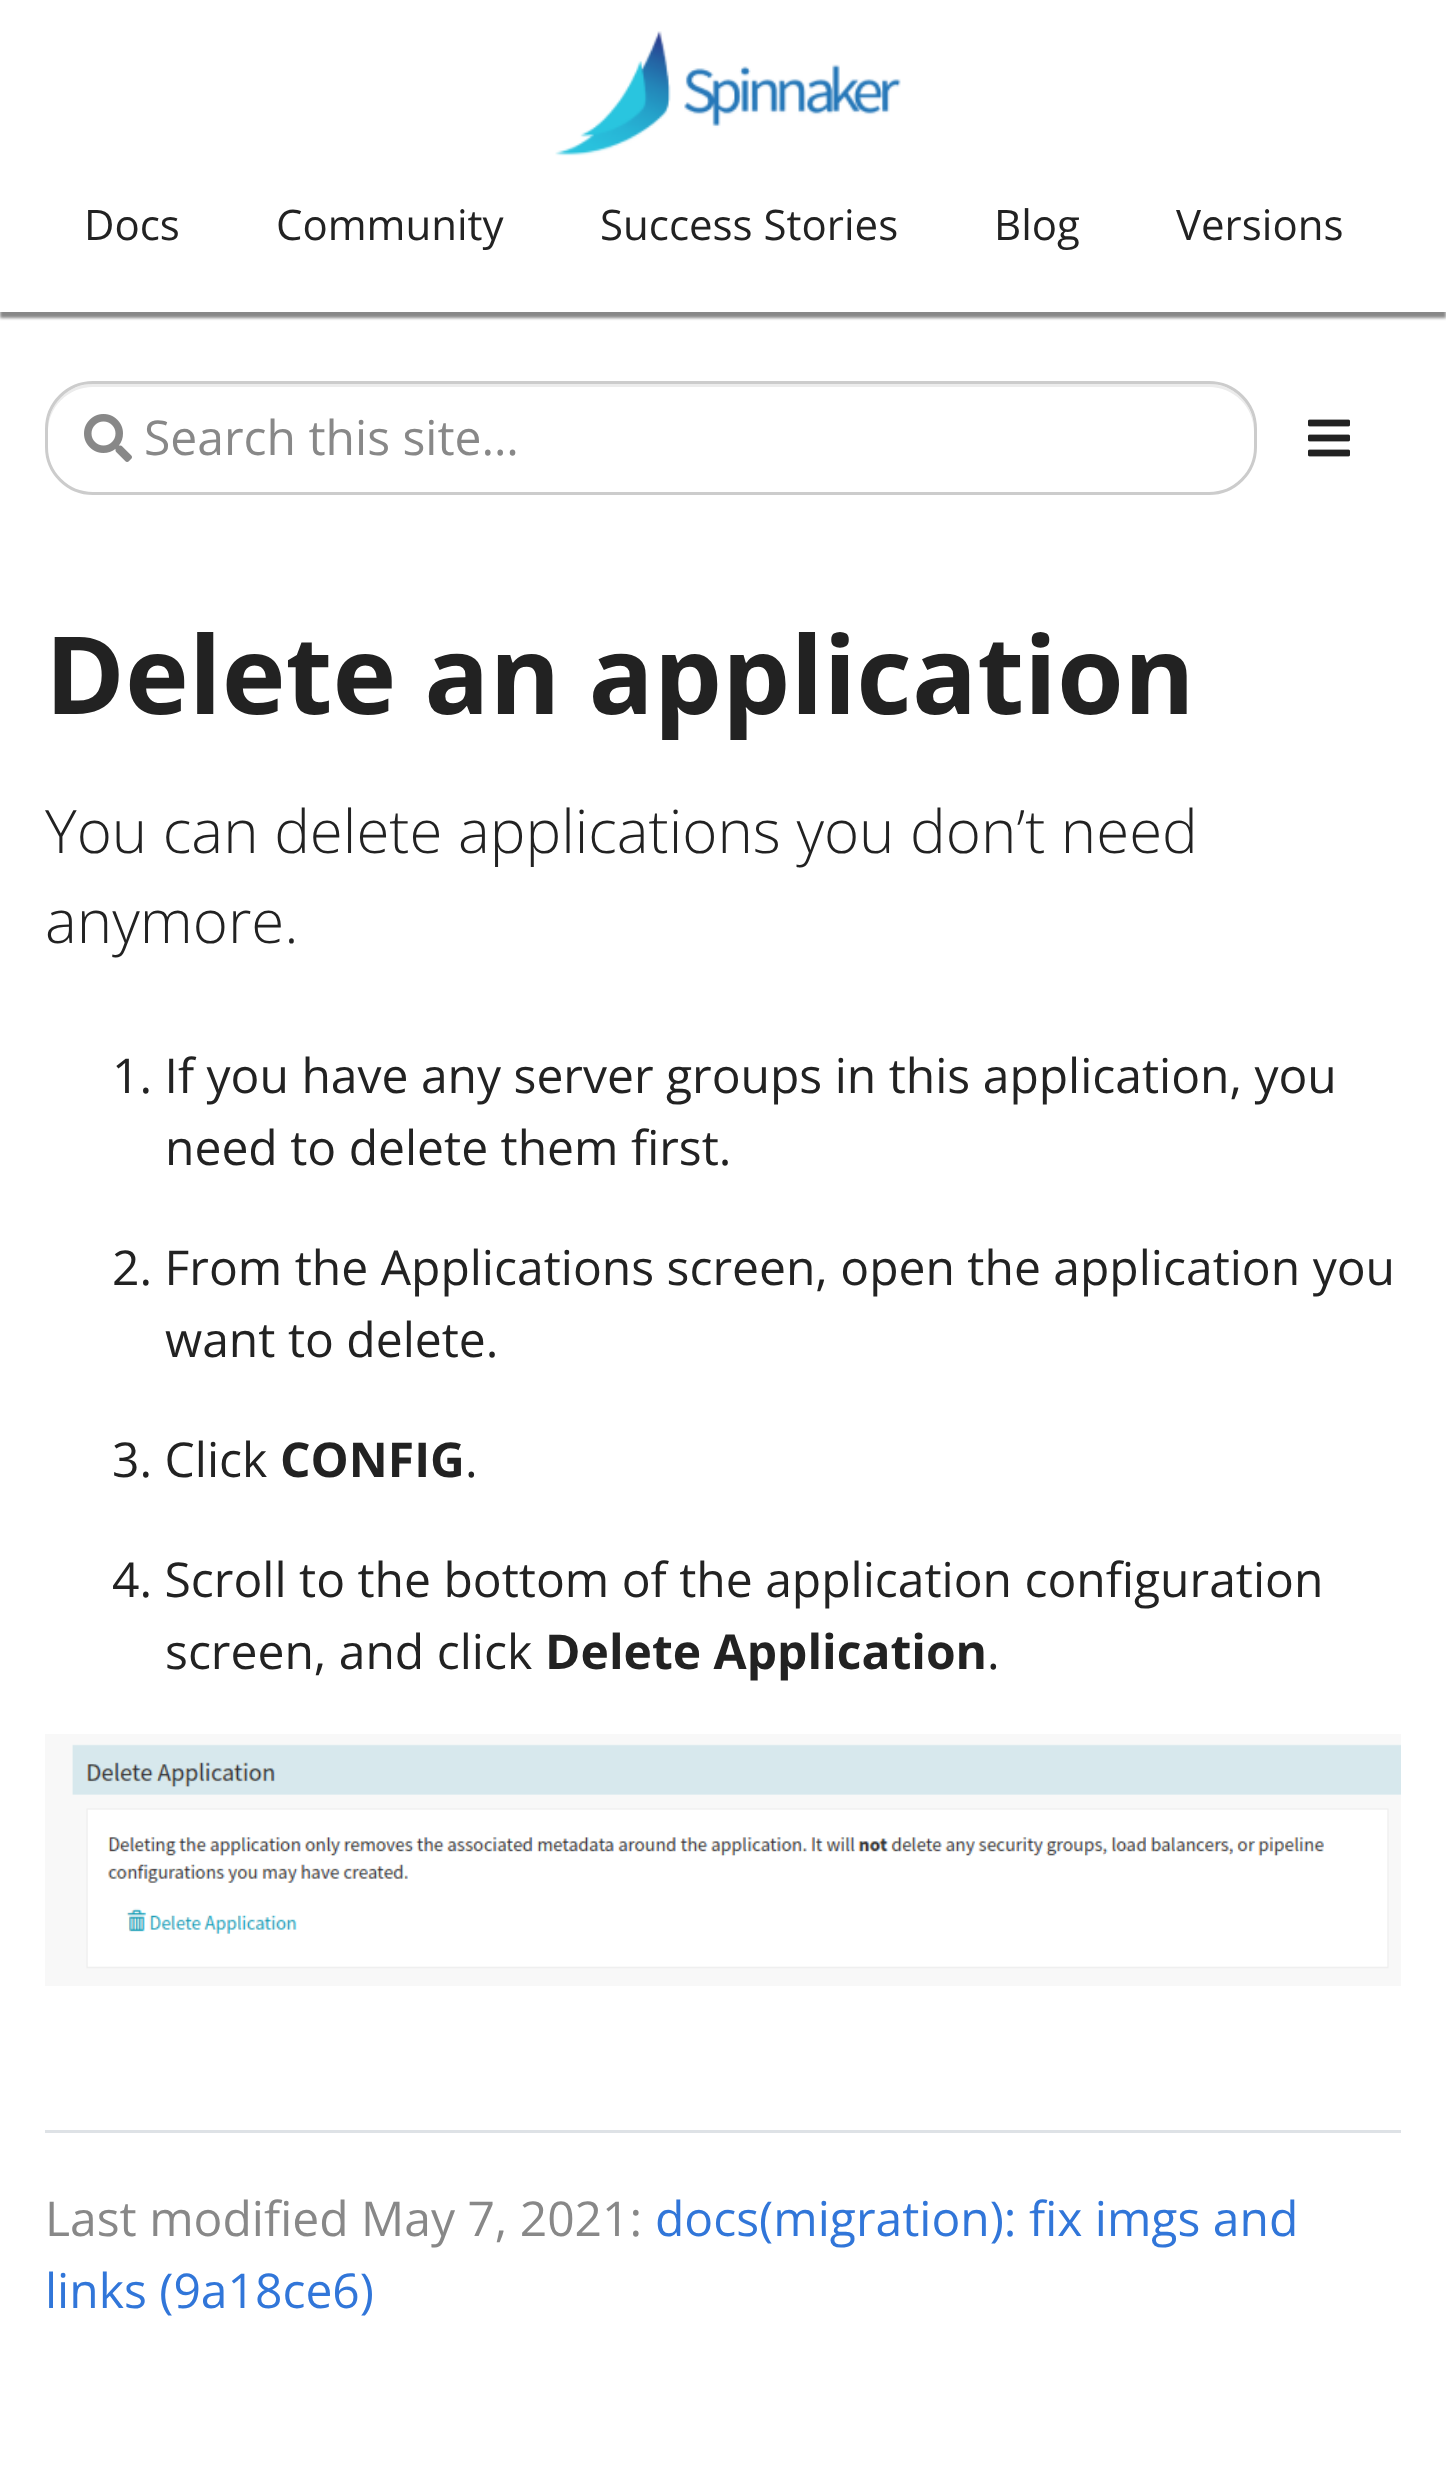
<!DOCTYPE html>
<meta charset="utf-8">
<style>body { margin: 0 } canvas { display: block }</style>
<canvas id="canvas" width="1446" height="2469"></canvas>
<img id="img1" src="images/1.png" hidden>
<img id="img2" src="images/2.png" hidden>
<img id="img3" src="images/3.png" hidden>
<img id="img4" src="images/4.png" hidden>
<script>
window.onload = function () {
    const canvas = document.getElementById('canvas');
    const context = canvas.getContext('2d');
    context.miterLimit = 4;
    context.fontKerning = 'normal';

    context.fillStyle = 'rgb(255, 255, 255)';
    context.fillRect(0, 0, 1446, 2469);
    context.save();
    context.beginPath();
    context.rect(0, 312, 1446, 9);
    context.clip();
    context.fillStyle = 'rgb(136, 136, 136)';
    context.filter = 'blur(1.5px)';
    context.beginPath();
    context.rect(0, 6, 1446, 312);
    context.fill();
    context.filter = 'none';
    context.restore();
    context.drawImage(document.getElementById('img1'), 555, 31, 346, 125);
    context.fillStyle = 'rgb(236, 236, 236)';
    context.beginPath();
    context.moveTo(93, 387);
    context.lineTo(1209, 387);
    context.bezierCurveTo(1234, 387, 1254, 407, 1254, 432);
    context.lineTo(1254, 429);
    context.bezierCurveTo(1254, 404, 1234, 384, 1209, 384);
    context.lineTo(93, 384);
    context.bezierCurveTo(68, 384, 48, 404, 48, 429);
    context.lineTo(48, 432);
    context.bezierCurveTo(48, 407, 68, 387, 93, 387);
    context.closePath();
    context.fill();
    context.beginPath();
    context.roundRect(46.5, 382.5, 1209, 111, 46.5);
    context.strokeStyle = 'rgb(204, 204, 204)';
    context.lineWidth = 3;
    context.stroke();
    context.drawImage(document.getElementById('img2'), 84, 414, 48, 48);
    context.drawImage(document.getElementById('img3'), 1308, 419, 42, 38);
    context.drawImage(document.getElementById('img4'), 45, 1734, 1356, 252);
    context.fillStyle = 'rgb(222, 226, 230)';
    context.fillRect(45, 2130, 1356, 3);
    context.font = '42px Open Sans';
    context.fillStyle = 'rgb(34, 34, 34)';
    context.fillText('Docs', 84, 240);
    context.fillText('Community', 276, 240);
    context.fillText('Success Stories', 600, 240);
    context.fillText('Blog', 994, 240);
    context.fillText('Versions', 1176, 240);
    context.font = '48px Open Sans';
    context.fillStyle = 'rgb(136, 136, 136)';
    context.fillText('Search this site…', 144, 455);
    context.font = 'bold 108px Open Sans';
    context.fillStyle = 'rgb(34, 34, 34)';
    context.fillText('Delete an application', 45, 714);
    context.font = '300 60px Open Sans';
    context.fillText('You can delete applications you don’t need', 45, 853);
    context.fillText('anymore.', 45, 943);
    context.font = '48px Open Sans';
    context.fillText('1. If you have any server groups in this application, you', 112, 1093);
    context.fillText('need to delete them first.', 165, 1165);
    context.fillText('2. From the Applications screen, open the application you', 112, 1285);
    context.fillText('want to delete.', 165, 1357);
    context.fillText('3. Click', 112, 1477);
    context.font = 'bold 48px Open Sans';
    context.fillText('CONFIG', 280, 1477);
    context.font = '48px Open Sans';
    context.fillText('.', 465, 1477);
    context.fillText('4. Scroll to the bottom of the application configuration', 112, 1597);
    context.fillText('screen, and click', 165, 1669);
    context.font = 'bold 48px Open Sans';
    context.fillText('Delete Application', 545, 1669);
    context.font = '48px Open Sans';
    context.fillText('.', 987, 1669);
    context.fillStyle = 'rgb(136, 136, 136)';
    context.fillText('Last modified May 7, 2021:', 45, 2236);
    context.fillStyle = 'rgb(49, 118, 217)';
    context.fillText('docs(migration): fix imgs and', 655, 2236);
    context.fillText('links (9a18ce6)', 45, 2308);
};
</script>
